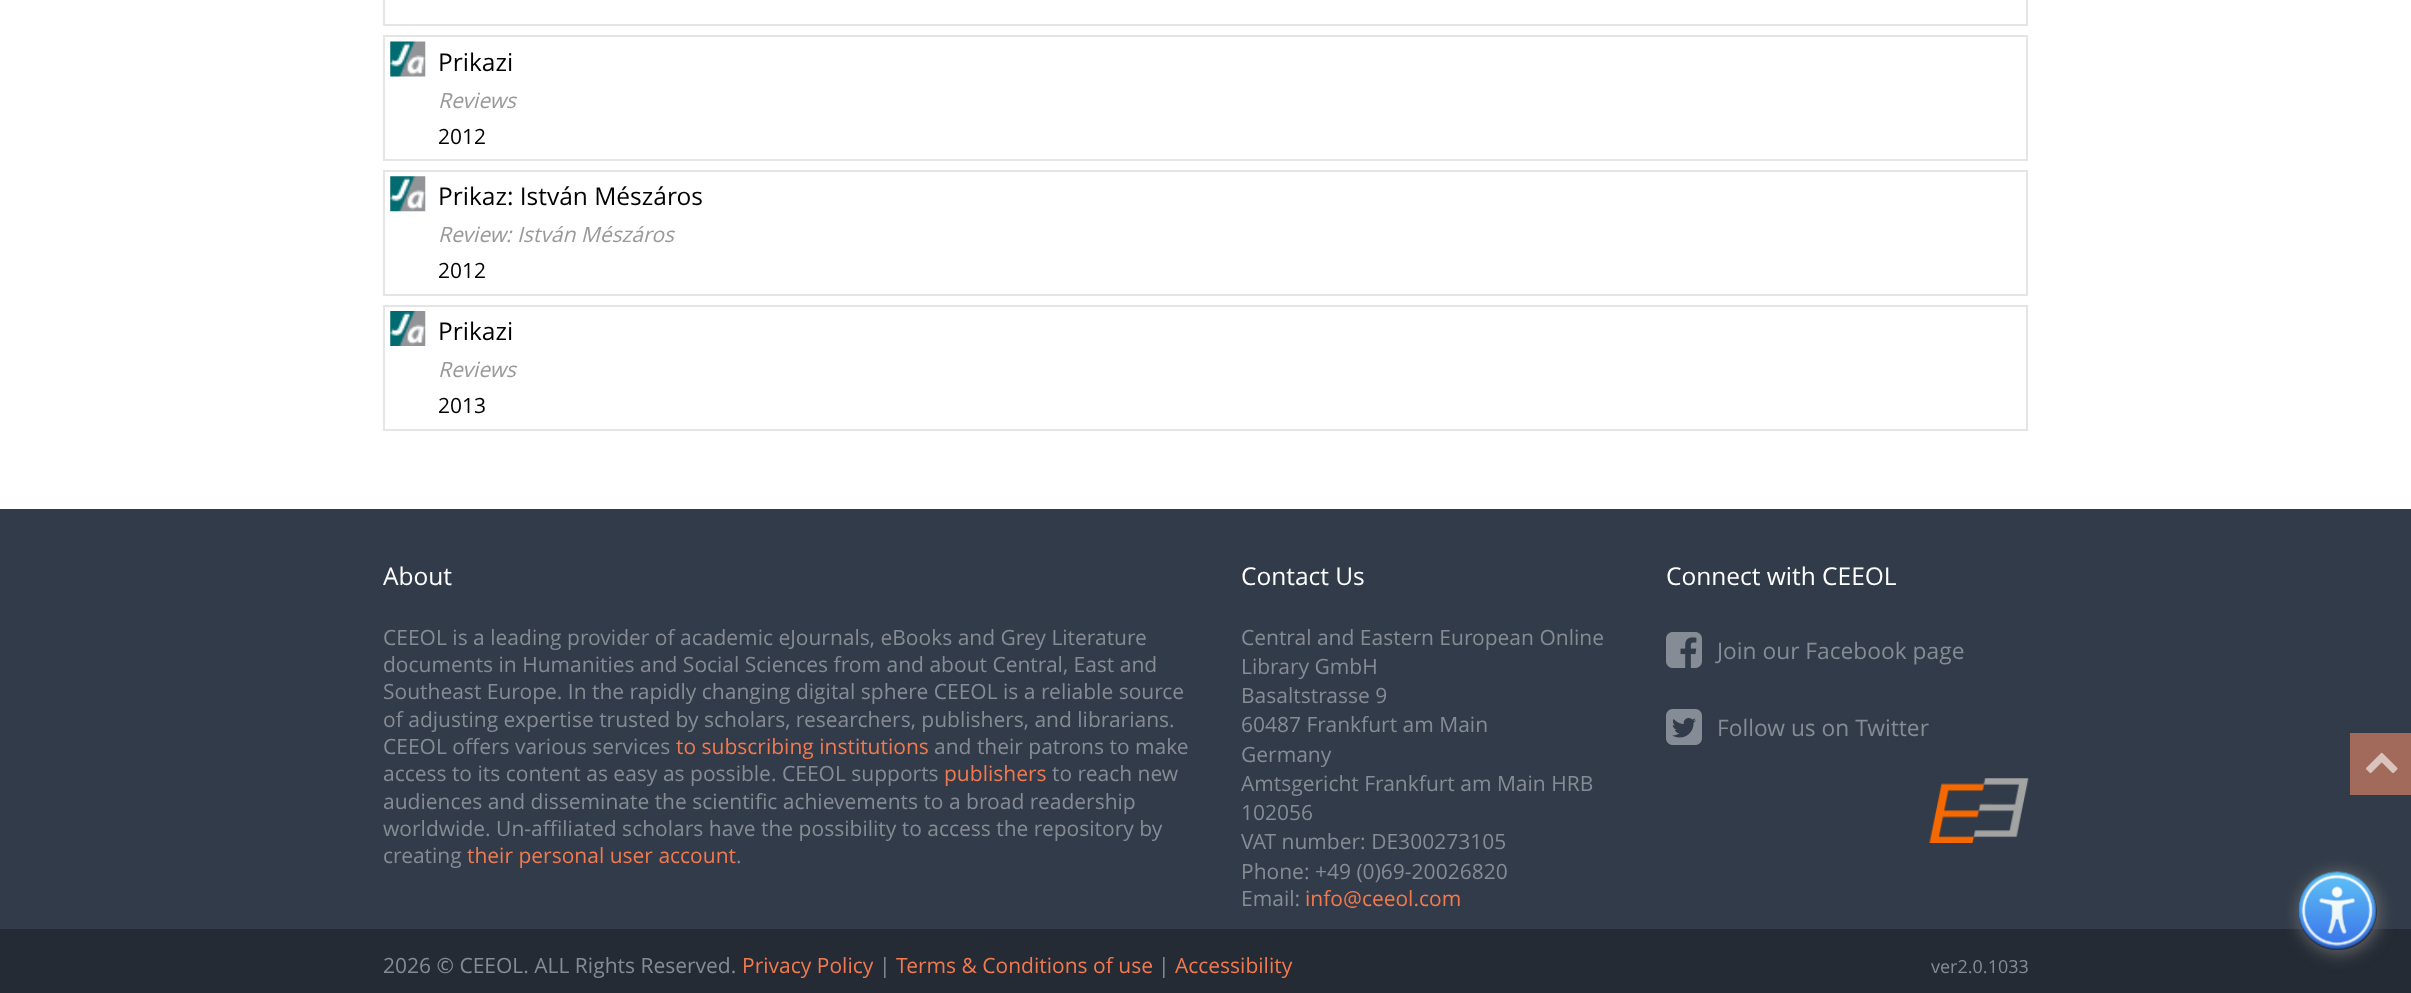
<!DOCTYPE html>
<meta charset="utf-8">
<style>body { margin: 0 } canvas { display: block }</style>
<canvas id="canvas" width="2411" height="993"></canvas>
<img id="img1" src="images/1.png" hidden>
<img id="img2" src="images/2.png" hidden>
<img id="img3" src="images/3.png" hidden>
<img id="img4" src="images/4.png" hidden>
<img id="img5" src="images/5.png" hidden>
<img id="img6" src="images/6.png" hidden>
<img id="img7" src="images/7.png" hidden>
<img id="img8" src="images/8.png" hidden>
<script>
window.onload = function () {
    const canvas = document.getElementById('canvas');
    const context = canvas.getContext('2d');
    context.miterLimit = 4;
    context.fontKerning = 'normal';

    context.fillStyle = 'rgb(255, 255, 255)';
    context.fillRect(0, 0, 2411, 993);
    context.strokeStyle = 'rgb(229, 229, 229)';
    context.lineWidth = 2;
    context.strokeRect(384, -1, 1643, 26);
    context.strokeRect(384, 36, 1643, 124);
    context.drawImage(document.getElementById('img1'), 390, 41, 36, 36);
    context.strokeRect(384, 171, 1643, 124);
    context.drawImage(document.getElementById('img2'), 390, 176, 36, 36);
    context.strokeRect(384, 306, 1643, 124);
    context.drawImage(document.getElementById('img3'), 390, 311, 36, 35);
    context.fillStyle = 'rgb(49, 59, 73)';
    context.fillRect(0, 509, 2411, 420);
    context.drawImage(document.getElementById('img4'), 1666, 632, 36, 36);
    context.drawImage(document.getElementById('img5'), 1666, 709, 36, 36);
    context.drawImage(document.getElementById('img6'), 1929, 778, 100, 65);
    context.fillStyle = 'rgb(162, 106, 90)';
    context.fillRect(2350, 733, 61, 62);
    context.drawImage(document.getElementById('img7'), 2366, 752, 32, 21);
    context.fillStyle = 'rgb(36, 43, 53)';
    context.fillRect(0, 929, 2411, 64);
    context.save();
    context.beginPath();
    context.moveTo(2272, 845);
    context.lineTo(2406, 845);
    context.lineTo(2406, 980);
    context.lineTo(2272, 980);
    context.closePath();
    context.moveTo(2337, 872);
    context.lineTo(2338, 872);
    context.bezierCurveTo(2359.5, 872, 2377, 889.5, 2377, 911);
    context.bezierCurveTo(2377, 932.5, 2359.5, 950, 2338, 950);
    context.lineTo(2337, 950);
    context.bezierCurveTo(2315.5, 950, 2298, 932.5, 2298, 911);
    context.bezierCurveTo(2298, 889.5, 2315.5, 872, 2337, 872);
    context.closePath();
    context.clip('evenodd');
    context.fillStyle = 'rgb(113, 112, 112)';
    context.filter = 'blur(9px)';
    context.beginPath();
    context.roundRect(2300, 873, 78, 79, 39);
    context.fill();
    context.filter = 'none';
    context.restore();
    context.drawImage(document.getElementById('img8'), 2297, 871, 79, 79);
    context.font = '24.5px Open Sans';
    context.fillStyle = 'rgb(0, 0, 0)';
    context.fillText('Prikazi', 438, 71);
    context.font = 'italic 21px Open Sans';
    context.fillStyle = 'rgb(153, 153, 153)';
    context.fillText('Reviews', 438, 108);
    context.font = '21px Open Sans';
    context.fillStyle = 'rgb(0, 0, 0)';
    context.fillText('2012', 438, 144);
    context.font = '24.5px Open Sans';
    context.fillText('Prikaz: István Mészáros', 438, 205);
    context.font = 'italic 21px Open Sans';
    context.fillStyle = 'rgb(153, 153, 153)';
    context.fillText('Review: István Mészáros', 438, 242);
    context.font = '21px Open Sans';
    context.fillStyle = 'rgb(0, 0, 0)';
    context.fillText('2012', 438, 278);
    context.font = '24.5px Open Sans';
    context.fillText('Prikazi', 438, 340);
    context.font = 'italic 21px Open Sans';
    context.fillStyle = 'rgb(153, 153, 153)';
    context.fillText('Reviews', 438, 377);
    context.font = '21px Open Sans';
    context.fillStyle = 'rgb(0, 0, 0)';
    context.fillText('2013', 438, 413);
    context.font = '24.5px Open Sans';
    context.fillStyle = 'rgb(255, 255, 255)';
    context.fillText('About', 383, 585);
    context.font = '21px Open Sans';
    context.fillStyle = 'rgb(134, 140, 149)';
    context.fillText('CEEOL is a leading provider of academic eJournals, eBooks and Grey Literature', 383, 645);
    context.fillText('documents in Humanities and Social Sciences from and about Central, East and', 383, 672);
    context.fillText('Southeast Europe. In the rapidly changing digital sphere CEEOL is a reliable source', 383, 699);
    context.fillText('of adjusting expertise trusted by scholars, researchers, publishers, and librarians.', 383, 727);
    context.fillText('CEEOL offers various services', 383, 754);
    context.fillStyle = 'rgb(243, 121, 78)';
    context.fillText('to subscribing institutions', 676, 754);
    context.fillStyle = 'rgb(134, 140, 149)';
    context.fillText('and their patrons to make', 934, 754);
    context.fillText('access to its content as easy as possible. CEEOL supports', 383, 781);
    context.fillStyle = 'rgb(243, 121, 78)';
    context.fillText('publishers', 944, 781);
    context.fillStyle = 'rgb(134, 140, 149)';
    context.fillText('to reach new', 1052, 781);
    context.fillText('audiences and disseminate the scientific achievements to a broad readership', 383, 809);
    context.fillText('worldwide. Un-affiliated scholars have the possibility to access the repository by', 383, 836);
    context.fillText('creating', 383, 863);
    context.fillStyle = 'rgb(243, 121, 78)';
    context.fillText('their personal user account', 467, 863);
    context.fillStyle = 'rgb(134, 140, 149)';
    context.fillText('.', 736, 863);
    context.font = '24.5px Open Sans';
    context.fillStyle = 'rgb(255, 255, 255)';
    context.fillText('Contact Us', 1241, 585);
    context.font = '21px Open Sans';
    context.fillStyle = 'rgb(134, 140, 149)';
    context.fillText('Central and Eastern European Online', 1241, 645);
    context.fillText('Library GmbH', 1241, 674);
    context.fillText('Basaltstrasse 9', 1241, 703);
    context.fillText('60487 Frankfurt am Main', 1241, 732);
    context.fillText('Germany', 1241, 762);
    context.fillText('Amtsgericht Frankfurt am Main HRB', 1241, 791);
    context.fillText('102056', 1241, 820);
    context.fillText('VAT number: DE300273105', 1241, 849);
    context.fillText('Phone: +49 (0)69-20026820', 1241, 879);
    context.fillText('Email:', 1241, 906);
    context.fillStyle = 'rgb(243, 121, 78)';
    context.fillText('info@ceeol.com', 1305, 906);
    context.font = '24.5px Open Sans';
    context.fillStyle = 'rgb(255, 255, 255)';
    context.fillText('Connect with CEEOL', 1666, 585);
    context.font = '22.75px Open Sans';
    context.fillStyle = 'rgb(134, 140, 149)';
    context.fillText('Join our Facebook page', 1717, 659);
    context.fillText('Follow us on Twitter', 1717, 736);
    context.font = '21px Open Sans';
    context.fillText('2026 © CEEOL. ALL Rights Reserved.', 383, 973);
    context.fillStyle = 'rgb(243, 121, 78)';
    context.fillText('Privacy Policy', 742, 973);
    context.fillStyle = 'rgb(134, 140, 149)';
    context.fillText('|', 879, 973);
    context.fillStyle = 'rgb(243, 121, 78)';
    context.fillText('Terms & Conditions of use', 896, 973);
    context.fillStyle = 'rgb(134, 140, 149)';
    context.fillText('|', 1158, 973);
    context.fillStyle = 'rgb(243, 121, 78)';
    context.fillText('Accessibility', 1175, 973);
    context.font = '18px Open Sans';
    context.fillStyle = 'rgb(134, 140, 149)';
    context.fillText('ver2.0.1033', 1931, 973);
};
</script>
